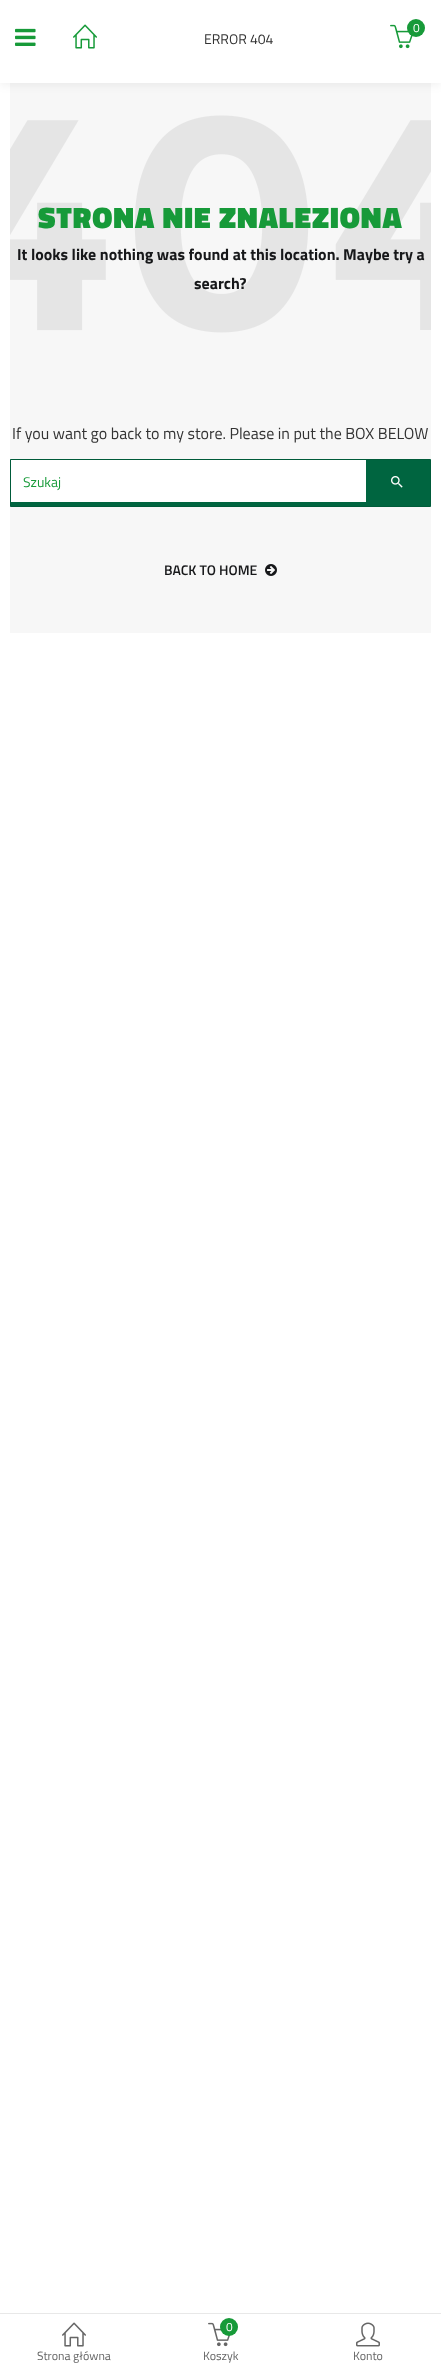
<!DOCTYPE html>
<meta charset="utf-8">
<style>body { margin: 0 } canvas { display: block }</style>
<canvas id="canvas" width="441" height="2371"></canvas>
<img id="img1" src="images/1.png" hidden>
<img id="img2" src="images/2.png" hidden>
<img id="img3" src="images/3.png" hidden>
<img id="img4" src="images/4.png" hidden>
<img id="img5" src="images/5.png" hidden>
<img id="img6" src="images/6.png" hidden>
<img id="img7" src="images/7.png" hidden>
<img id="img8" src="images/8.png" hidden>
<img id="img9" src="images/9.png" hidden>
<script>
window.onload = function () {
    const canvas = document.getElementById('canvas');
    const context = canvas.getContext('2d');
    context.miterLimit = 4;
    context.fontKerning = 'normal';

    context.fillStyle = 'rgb(255, 255, 255)';
    context.fillRect(0, 0, 441, 2371);
    context.fillStyle = 'rgb(247, 247, 247)';
    context.fillRect(10, 83, 421, 550);
    context.fillStyle = 'rgba(0, 0, 0, 0.06)';
    context.filter = 'blur(5px)';
    context.beginPath();
    context.rect(0, 2, 441, 83);
    context.fill();
    context.filter = 'none';
    context.fillStyle = 'rgb(255, 255, 255)';
    context.fillRect(0, 0, 441, 83);
    context.drawImage(document.getElementById('img1'), 15, 28, 21, 18);
    context.drawImage(document.getElementById('img2'), 73, 24, 24, 25);
    context.drawImage(document.getElementById('img3'), 390, 24, 23, 25);
    context.fillStyle = 'rgb(23, 154, 57)';
    context.beginPath();
    context.arc(416, 28, 9, 0, 2 * Math.PI);
    context.fill();
    context.drawImage(document.getElementById('img4'), 10, 115, 421, 218);
    context.fillStyle = 'rgb(0, 101, 64)';
    context.beginPath();
    context.rect(10.5, 459.5, 420, 47);
    context.fill();
    context.strokeStyle = 'rgb(0, 91, 58)';
    context.stroke();
    context.fillStyle = 'rgb(255, 255, 255)';
    context.fillRect(11, 460, 355, 42);
    context.drawImage(document.getElementById('img5'), 391, 476, 12, 12);
    context.drawImage(document.getElementById('img6'), 265, 564, 12, 12);
    context.fillStyle = 'rgb(232, 232, 232)';
    context.fillRect(0, 2313, 441, 1);
    context.drawImage(document.getElementById('img7'), 62, 2322, 24, 25);
    context.drawImage(document.getElementById('img8'), 208, 2322, 23, 25);
    context.fillStyle = 'rgb(23, 154, 57)';
    context.beginPath();
    context.arc(229, 2327, 9, 0, 2 * Math.PI);
    context.fill();
    context.drawImage(document.getElementById('img9'), 356, 2322, 24, 25);
    context.font = '14px Titillium Web';
    context.fillStyle = 'rgb(51, 51, 51)';
    context.fillText('ERROR 404', 204, 44);
    context.font = '12px Titillium Web';
    context.fillStyle = 'rgb(255, 255, 255)';
    context.fillText('0', 413, 32);
    context.letterSpacing = '1px';
    context.font = '900 30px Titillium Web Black';
    context.fillStyle = 'rgb(23, 154, 57)';
    context.fillText('STRONA NIE ZNALEZIONA', 38, 228);
    context.letterSpacing = '0px';
    context.font = 'bold 16px Titillium Web';
    context.fillStyle = 'rgb(23, 24, 26)';
    context.fillText('It looks like nothing was found at this location. Maybe try a', 17, 260);
    context.fillText('search?', 194, 289);
    context.font = '16px Titillium Web';
    context.fillStyle = 'rgb(51, 51, 51)';
    context.fillText('If you want go back to my store. Please in put the BOX BELOW', 12, 439);
    context.font = '14px Titillium Web';
    context.fillStyle = 'rgb(23, 154, 57)';
    context.fillText('Szukaj', 23, 487);
    context.font = '600 14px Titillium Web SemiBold';
    context.fillStyle = 'rgb(23, 24, 26)';
    context.fillText('BACK TO HOME', 164, 575);
    context.font = '12px Titillium Web';
    context.fillStyle = 'rgb(102, 102, 102)';
    context.fillText('Strona główna', 37, 2360);
    context.fillStyle = 'rgb(255, 255, 255)';
    context.fillText('0', 226, 2331);
    context.fillStyle = 'rgb(102, 102, 102)';
    context.fillText('Koszyk', 203, 2360);
    context.fillText('Konto', 353, 2360);
};
</script>
